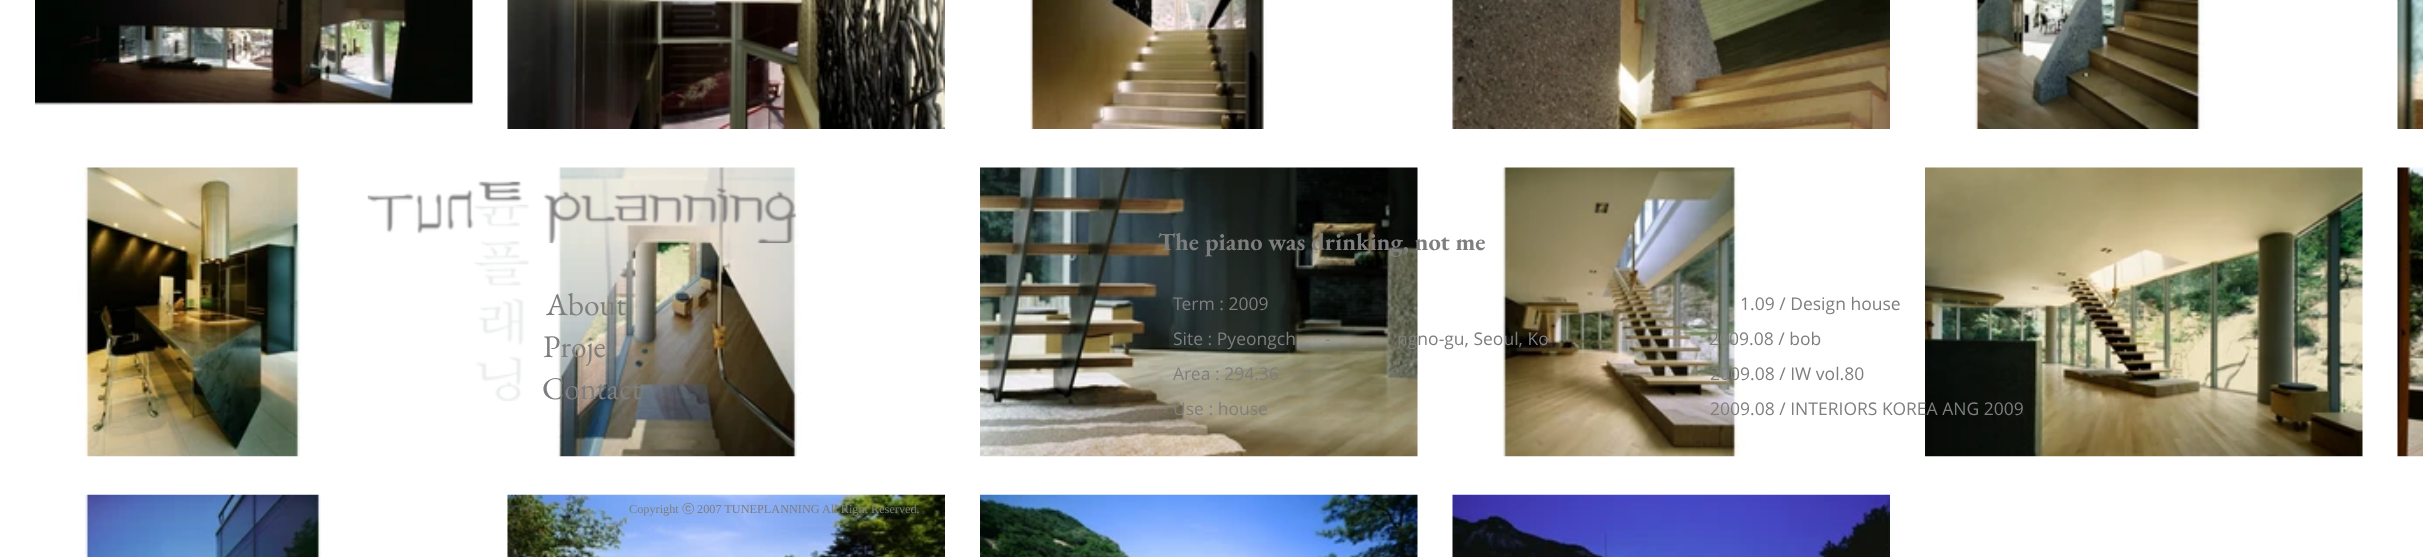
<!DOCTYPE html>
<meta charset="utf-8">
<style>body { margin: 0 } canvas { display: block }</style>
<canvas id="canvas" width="2423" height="557"></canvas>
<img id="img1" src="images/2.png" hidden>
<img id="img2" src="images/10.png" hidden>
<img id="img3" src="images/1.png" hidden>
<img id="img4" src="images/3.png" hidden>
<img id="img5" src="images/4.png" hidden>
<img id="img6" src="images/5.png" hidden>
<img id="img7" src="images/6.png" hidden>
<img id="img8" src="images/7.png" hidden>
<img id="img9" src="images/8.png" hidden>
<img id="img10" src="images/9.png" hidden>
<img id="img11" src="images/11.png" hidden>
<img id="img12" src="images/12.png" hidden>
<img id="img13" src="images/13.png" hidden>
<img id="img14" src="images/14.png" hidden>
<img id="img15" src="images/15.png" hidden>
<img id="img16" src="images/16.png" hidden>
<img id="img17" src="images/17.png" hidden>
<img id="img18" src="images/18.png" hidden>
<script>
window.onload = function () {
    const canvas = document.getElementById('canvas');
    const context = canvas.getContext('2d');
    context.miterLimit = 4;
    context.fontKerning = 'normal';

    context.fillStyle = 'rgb(255, 255, 255)';
    context.fillRect(0, 0, 2423, 557);
    context.drawImage(document.getElementById('img1'), 474, 204, 55, 197);
    context.drawImage(document.getElementById('img2'), 557, 167, 245, 290);
    context.drawImage(document.getElementById('img3'), 367, 181, 430, 63);
    context.drawImage(document.getElementById('img4'), 35, 0, 438, 106);
    context.drawImage(document.getElementById('img5'), 507, 0, 438, 129);
    context.drawImage(document.getElementById('img6'), 1029, 0, 238, 129);
    context.drawImage(document.getElementById('img7'), 1452, 0, 438, 129);
    context.drawImage(document.getElementById('img8'), 1974, 0, 231, 129);
    context.drawImage(document.getElementById('img9'), 2397, 0, 26, 129);
    context.drawImage(document.getElementById('img10'), 77, 167, 225, 290);
    context.drawImage(document.getElementById('img11'), 980, 167, 438, 290);
    context.drawImage(document.getElementById('img12'), 1501, 167, 245, 290);
    context.drawImage(document.getElementById('img13'), 1925, 167, 438, 290);
    context.drawImage(document.getElementById('img14'), 2397, 167, 26, 290);
    context.drawImage(document.getElementById('img15'), 84, 494, 237, 63);
    context.drawImage(document.getElementById('img16'), 507, 494, 438, 63);
    context.drawImage(document.getElementById('img17'), 980, 494, 438, 63);
    context.drawImage(document.getElementById('img18'), 1452, 494, 438, 63);
    context.font = '31.5px EB Garamond';
    context.fillStyle = 'rgb(127, 126, 126)';
    context.fillText('About', 546, 315);
    context.fillText('Proje', 543, 357);
    context.fillText('Contact', 542, 399);
    context.font = '12.25px Liberation Serif';
    context.fillText('Copyright', 629, 513);
    context.font = '500 12.25px WenQuanYi Zen Hei';
    context.fillText('ⓒ', 682, 513);
    context.font = '12.25px Liberation Serif';
    context.fillText('2007 TUNEPLANNING All Right Reserved.', 697, 513);
    context.font = 'bold 24.5px EB Garamond';
    context.fillText('The piano was drinking, not me', 1158, 250);
    context.font = '17.5px Open Sans';
    context.fillText('Term : 2009', 1173, 310);
    context.fillText('1.09 / Design house', 1740, 310);
    context.fillText('Site : Pyeongch', 1173, 345);
    context.fillText('-', 1325, 345);
    context.fillText('ngno-gu, Seoul, Ko', 1397, 345);
    context.fillText('2009.08 / bob', 1709, 345);
    context.fillText('Area : 294.36', 1173, 380);
    context.fillText('2009.08 / IW vol.80', 1710, 380);
    context.fillText('Use : house', 1173, 415);
    context.fillText('2009.08 / INTERIORS KOREA ANG 2009', 1710, 415);
};
</script>
